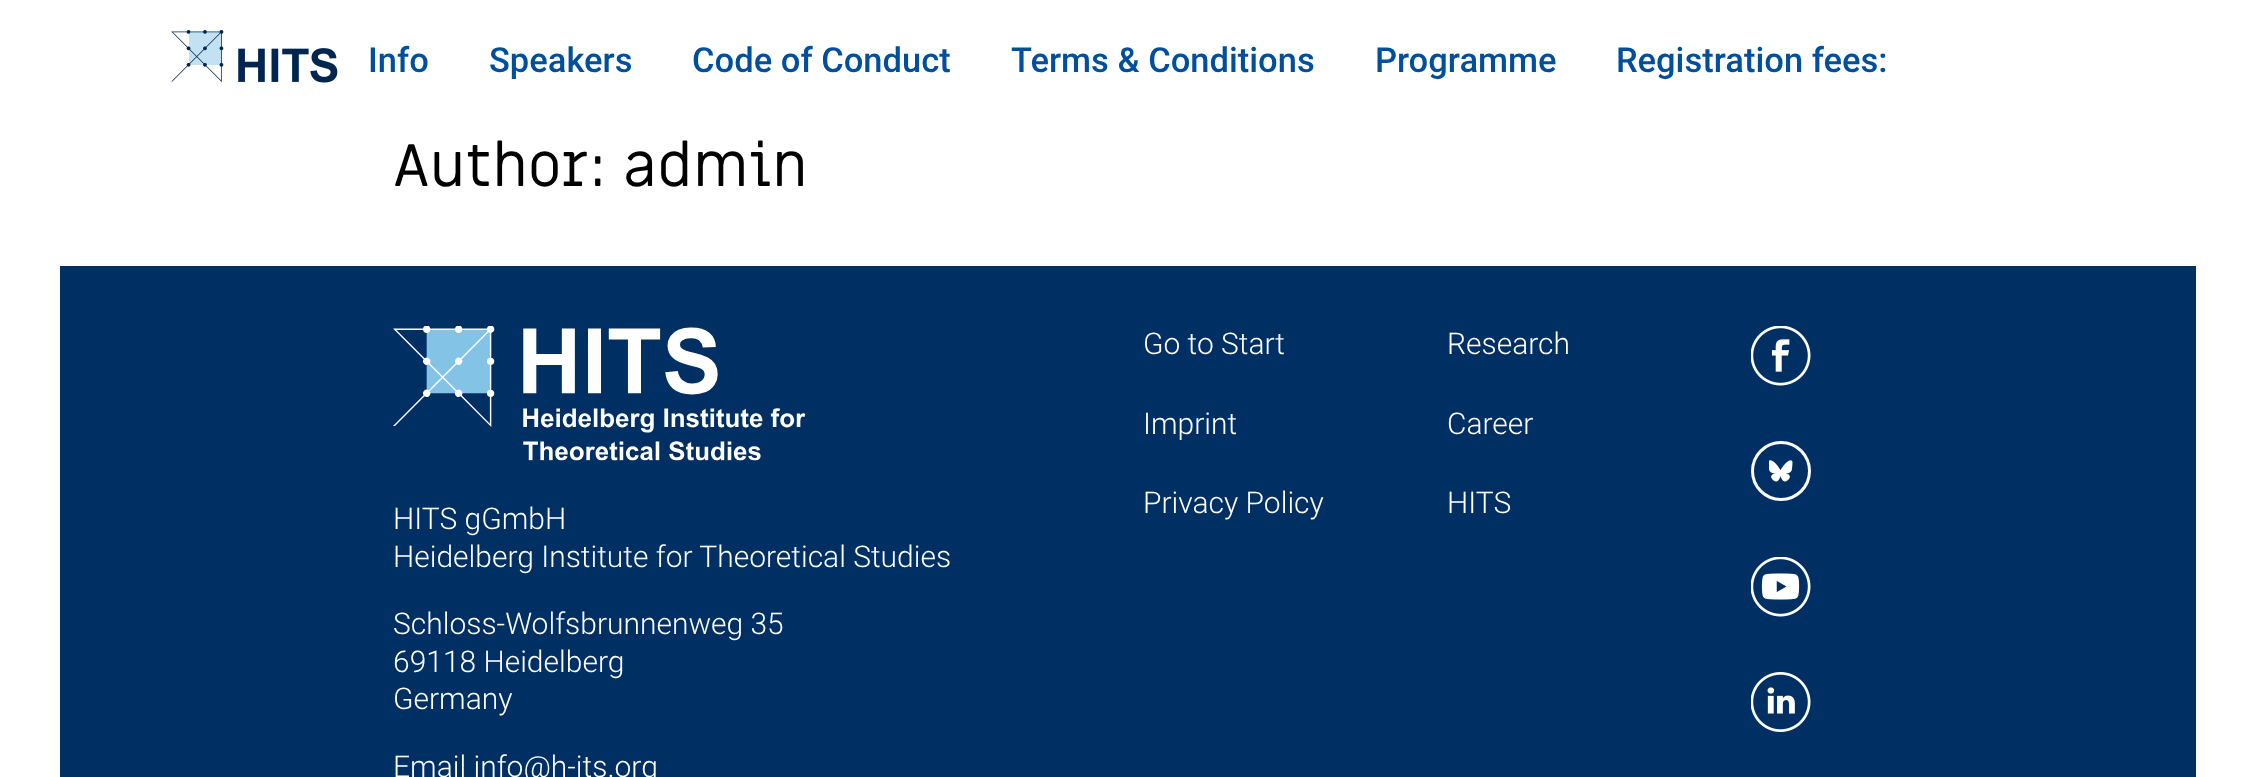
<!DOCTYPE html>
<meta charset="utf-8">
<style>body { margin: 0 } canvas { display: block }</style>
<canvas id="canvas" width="2255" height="777"></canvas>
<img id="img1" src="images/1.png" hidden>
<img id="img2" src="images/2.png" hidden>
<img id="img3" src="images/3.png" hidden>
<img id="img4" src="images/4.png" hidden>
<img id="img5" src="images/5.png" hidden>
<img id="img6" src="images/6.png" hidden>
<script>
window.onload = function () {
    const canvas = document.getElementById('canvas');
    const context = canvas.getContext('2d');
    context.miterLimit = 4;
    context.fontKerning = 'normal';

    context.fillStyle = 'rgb(255, 255, 255)';
    context.fillRect(0, 0, 2255, 777);
    context.drawImage(document.getElementById('img1'), 171, 30, 167, 53);
    context.fillStyle = 'rgb(0, 48, 99)';
    context.fillRect(60, 266, 2136, 511);
    context.drawImage(document.getElementById('img2'), 1751, 326, 60, 60);
    context.drawImage(document.getElementById('img3'), 1769, 460, 24, 22);
    context.beginPath();
    context.arc(1781, 471, 28.5, 0, 2 * Math.PI);
    context.strokeStyle = 'rgb(255, 255, 255)';
    context.lineWidth = 3;
    context.stroke();
    context.drawImage(document.getElementById('img4'), 1751, 557, 60, 60);
    context.drawImage(document.getElementById('img5'), 1751, 672, 60, 60);
    context.drawImage(document.getElementById('img6'), 393, 326, 413, 135);
    context.font = '500 34.5px Roboto';
    context.fillStyle = 'rgb(0, 79, 159)';
    context.fillText('Info', 368, 72);
    context.fillText('Speakers', 489, 72);
    context.fillText('Code of Conduct', 692, 72);
    context.fillText('Terms & Conditions', 1011, 72);
    context.fillText('Programme', 1375, 72);
    context.fillText('Registration fees:', 1616, 72);
    context.font = '60px Miriam Libre';
    context.fillStyle = 'rgb(0, 0, 0)';
    context.fillText('Author: admin', 393, 186);
    context.font = '300 30px Roboto';
    context.fillStyle = 'rgb(255, 255, 255)';
    context.fillText('Go to Start', 1143, 354);
    context.fillText('Imprint', 1143, 434);
    context.fillText('Privacy Policy', 1143, 513);
    context.fillText('Research', 1447, 354);
    context.fillText('Career', 1447, 434);
    context.fillText('HITS', 1447, 513);
    context.fillText('HITS gGmbH', 393, 529);
    context.fillText('Heidelberg Institute for Theoretical Studies', 393, 567);
    context.fillText('Schloss-Wolfsbrunnenweg 35', 393, 634);
    context.fillText('69118 Heidelberg', 393, 672);
    context.fillText('Germany', 393, 709);
    context.fillText('Email info@h-its.org', 393, 777);
};
</script>
